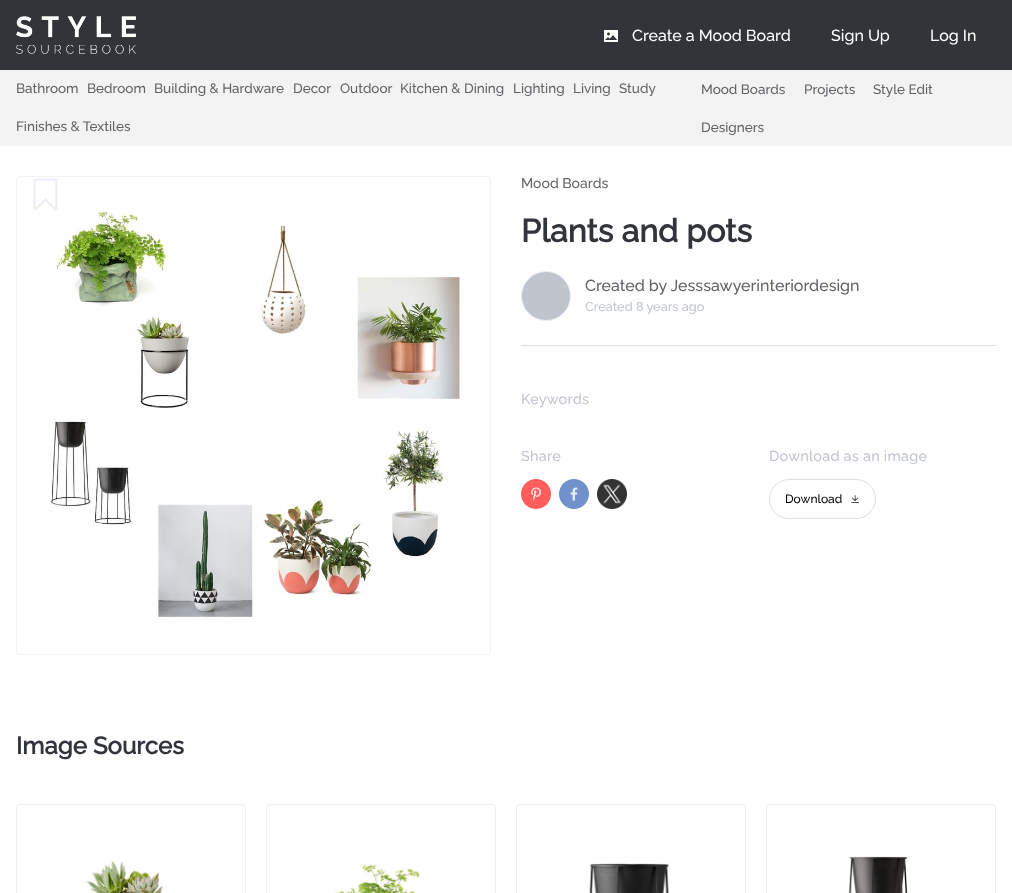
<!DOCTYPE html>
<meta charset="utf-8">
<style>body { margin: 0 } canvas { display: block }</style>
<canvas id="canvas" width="1012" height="893"></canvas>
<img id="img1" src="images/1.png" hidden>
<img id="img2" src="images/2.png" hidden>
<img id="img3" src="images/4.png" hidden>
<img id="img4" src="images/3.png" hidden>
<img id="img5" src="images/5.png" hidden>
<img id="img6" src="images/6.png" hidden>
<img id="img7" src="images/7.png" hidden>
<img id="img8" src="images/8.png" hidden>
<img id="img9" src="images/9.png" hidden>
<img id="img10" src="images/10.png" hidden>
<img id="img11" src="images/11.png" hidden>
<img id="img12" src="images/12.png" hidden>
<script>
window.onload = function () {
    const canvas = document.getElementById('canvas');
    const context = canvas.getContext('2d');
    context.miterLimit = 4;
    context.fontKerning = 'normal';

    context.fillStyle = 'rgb(255, 255, 255)';
    context.fillRect(0, 0, 1012, 893);
    context.fillStyle = 'rgb(243, 243, 243)';
    context.fillRect(0, 70, 1012, 76);
    context.fillStyle = 'rgb(49, 53, 58)';
    context.fillRect(0, 0, 1012, 70);
    context.drawImage(document.getElementById('img1'), 16, 16, 120, 38);
    context.drawImage(document.getElementById('img2'), 604, 30, 14, 12);
    context.beginPath();
    context.roundRect(16.5, 176.5, 474, 478, 3.5);
    context.strokeStyle = 'rgb(242, 242, 240)';
    context.stroke();
    context.drawImage(document.getElementById('img3'), 50, 209, 410, 408);
    context.drawImage(document.getElementById('img4'), 33, 178, 25, 33);
    context.fillStyle = 'rgb(192, 196, 204)';
    context.beginPath();
    context.arc(546, 296, 24.5, 0, 2 * Math.PI);
    context.fill();
    context.strokeStyle = 'rgb(235, 238, 245)';
    context.stroke();
    context.fillStyle = 'rgb(220, 223, 230)';
    context.fillRect(521, 345, 475, 1);
    context.drawImage(document.getElementById('img5'), 521, 479, 30, 30);
    context.drawImage(document.getElementById('img6'), 559, 479, 30, 30);
    context.drawImage(document.getElementById('img7'), 597, 479, 30, 30);
    context.beginPath();
    context.roundRect(769.5, 479.5, 106, 39, 19.5);
    context.strokeStyle = 'rgb(220, 223, 230)';
    context.stroke();
    context.drawImage(document.getElementById('img8'), 851, 495, 8, 8);
    context.beginPath();
    context.roundRect(16.5, 804.5, 229, 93, 3.5);
    context.strokeStyle = 'rgb(235, 238, 245)';
    context.stroke();
    context.drawImage(document.getElementById('img9'), 86, 861, 77, 32);
    context.beginPath();
    context.roundRect(266.5, 804.5, 229, 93, 3.5);
    context.stroke();
    context.drawImage(document.getElementById('img10'), 335, 862, 85, 31);
    context.beginPath();
    context.roundRect(516.5, 804.5, 229, 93, 3.5);
    context.stroke();
    context.drawImage(document.getElementById('img11'), 589, 863, 80, 30);
    context.beginPath();
    context.roundRect(766.5, 804.5, 229, 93, 3.5);
    context.stroke();
    context.drawImage(document.getElementById('img12'), 848, 856, 60, 37);
    context.font = '500 16px Raleway';
    context.fillStyle = 'rgb(255, 255, 255)';
    context.fillText('Create a Mood Board', 632, 41);
    context.fillText('Sign Up', 831, 41);
    context.fillText('Log In', 930, 41);
    context.font = '500 13.5px Raleway';
    context.fillStyle = 'rgb(96, 98, 102)';
    context.fillText('Bathroom', 16, 93);
    context.fillText('Bedroom', 87, 93);
    context.fillText('Building & Hardware', 154, 93);
    context.fillText('Decor', 293, 93);
    context.fillText('Outdoor', 340, 93);
    context.fillText('Kitchen & Dining', 400, 93);
    context.fillText('Lighting', 513, 93);
    context.fillText('Living', 573, 93);
    context.fillText('Study', 619, 93);
    context.fillText('Finishes & Textiles', 16, 131);
    context.fillText('Mood Boards', 701, 94);
    context.fillText('Projects', 804, 94);
    context.fillText('Style Edit', 873, 94);
    context.fillText('Designers', 701, 132);
    context.font = '500 14px Raleway';
    context.fillText('Mood Boards', 521, 188);
    context.font = 'bold 32px Raleway';
    context.fillStyle = 'rgb(49, 53, 58)';
    context.fillText('Plants and pots', 521, 242);
    context.font = '500 16px Raleway';
    context.fillStyle = 'rgb(96, 98, 102)';
    context.fillText('Created by Jesssawyerinteriordesign', 585, 291);
    context.font = '500 12.75px Raleway';
    context.fillStyle = 'rgb(192, 196, 204)';
    context.fillText('Created 8 years ago', 585, 311);
    context.letterSpacing = '0.25px';
    context.font = '500 14.4px Raleway';
    context.fillText('Keywords', 521, 404);
    context.fillText('Share', 521, 461);
    context.fillText('Download as an image', 769, 461);
    context.letterSpacing = '0px';
    context.font = '500 12px Raleway';
    context.fillStyle = 'rgb(0, 0, 0)';
    context.fillText('Download', 785, 503);
    context.font = 'bold 24px Raleway';
    context.fillStyle = 'rgb(49, 53, 58)';
    context.fillText('Image Sources', 16, 754);
};
</script>
